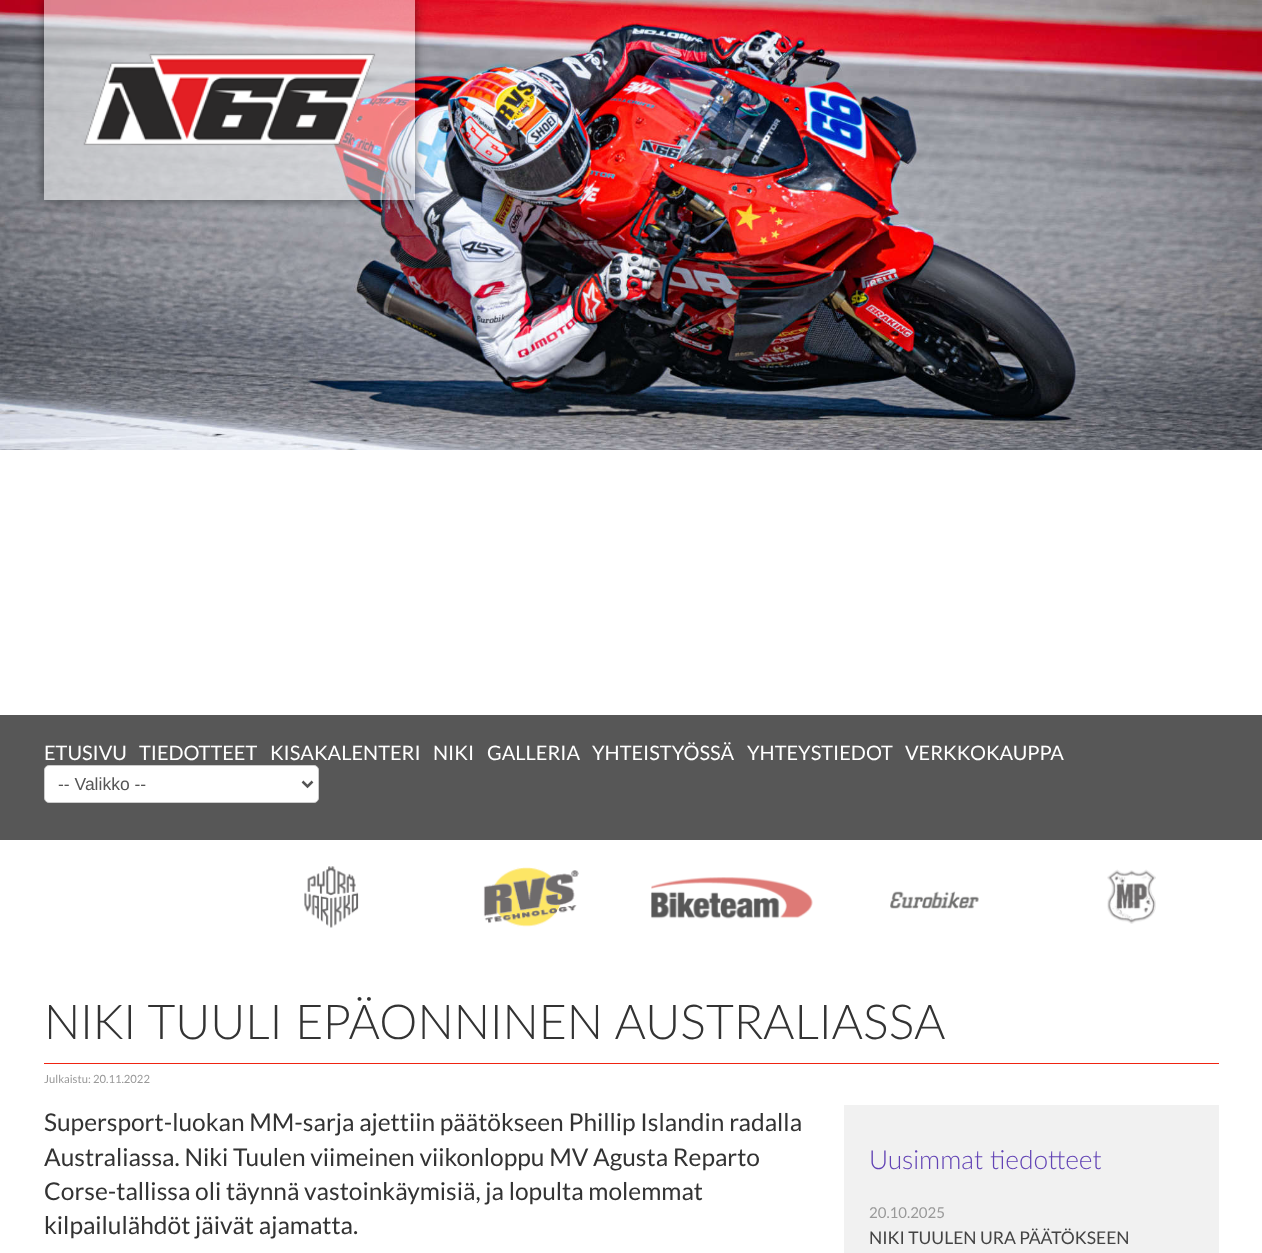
<!DOCTYPE html>
<meta charset="utf-8">
<style>body { margin: 0 } canvas { display: block }</style>
<canvas id="canvas" width="1262" height="1253"></canvas>
<img id="img1" src="images/1.png" hidden>
<img id="img2" src="images/2.png" hidden>
<img id="img3" src="images/3.png" hidden>
<img id="img4" src="images/4.png" hidden>
<img id="img5" src="images/5.png" hidden>
<img id="img6" src="images/6.png" hidden>
<img id="img7" src="images/7.png" hidden>
<script>
window.onload = function () {
    const canvas = document.getElementById('canvas');
    const context = canvas.getContext('2d');
    context.miterLimit = 4;
    context.fontKerning = 'normal';

    context.fillStyle = 'rgb(255, 255, 255)';
    context.fillRect(0, 0, 1262, 1253);
    context.drawImage(document.getElementById('img1'), 0, 0, 1262, 450);
    context.save();
    context.beginPath();
    context.moveTo(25, 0);
    context.lineTo(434, 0);
    context.lineTo(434, 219);
    context.lineTo(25, 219);
    context.closePath();
    context.moveTo(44, 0);
    context.lineTo(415, 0);
    context.lineTo(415, 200);
    context.lineTo(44, 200);
    context.closePath();
    context.clip('evenodd');
    context.fillStyle = 'rgba(0, 0, 0, 0.5)';
    context.filter = 'blur(6px)';
    context.beginPath();
    context.rect(44, 0, 371, 200);
    context.fill();
    context.filter = 'none';
    context.restore();
    context.fillStyle = 'rgba(255, 255, 255, 0.5)';
    context.fillRect(44, 0, 371, 200);
    context.drawImage(document.getElementById('img2'), 83, 53, 293, 93);
    context.fillStyle = 'rgb(87, 87, 87)';
    context.fillRect(0, 715, 1262, 125);
    context.fillStyle = 'rgb(255, 255, 255)';
    context.beginPath();
    context.roundRect(44.5, 765.5, 274, 37, 4.5);
    context.fill();
    context.strokeStyle = 'rgb(204, 204, 204)';
    context.stroke();
    context.beginPath();
    context.moveTo(302.5, 781.5);
    context.lineTo(307.5, 786.5);
    context.lineTo(312.5, 781.5);
    context.strokeStyle = 'rgb(85, 85, 85)';
    context.lineWidth = 2.5;
    context.stroke();
    context.drawImage(document.getElementById('img3'), 304, 866, 55, 62);
    context.drawImage(document.getElementById('img4'), 483, 867, 96, 60);
    context.drawImage(document.getElementById('img5'), 651, 877, 162, 42);
    context.drawImage(document.getElementById('img6'), 890, 891, 89, 18);
    context.drawImage(document.getElementById('img7'), 1107, 869, 49, 55);
    context.fillStyle = 'rgb(240, 35, 17)';
    context.fillRect(44, 1063, 1175, 1);
    context.fillStyle = 'rgb(241, 241, 241)';
    context.fillRect(844, 1105, 375, 148);
    context.font = '20px Lato';
    context.fillStyle = 'rgb(255, 255, 255)';
    context.fillText('ETUSIVU', 44, 760);
    context.fillText('TIEDOTTEET', 139, 760);
    context.fillText('KISAKALENTERI', 270, 760);
    context.fillText('NIKI', 433, 760);
    context.fillText('GALLERIA', 487, 760);
    context.fillText('YHTEISTYÖSSÄ', 592, 760);
    context.fillText('YHTEYSTIEDOT', 747, 760);
    context.fillText('VERKKOKAUPPA', 905, 760);
    context.font = '17.5px Liberation Sans';
    context.fillStyle = 'rgb(85, 85, 85)';
    context.fillText('-- Valikko --', 58, 790);
    context.font = '300 48.1px Lato';
    context.fillStyle = 'rgb(51, 51, 51)';
    context.fillText('NIKI TUULI EPÄONNINEN AUSTRALIASSA', 44, 1039);
    context.font = '11.25px Lato';
    context.fillStyle = 'rgb(153, 153, 153)';
    context.fillText('Julkaistu: 20.11.2022', 44, 1083);
    context.font = '24.5px Lato';
    context.fillStyle = 'rgb(51, 51, 51)';
    context.fillText('Supersport-luokan MM-sarja ajettiin päätökseen Phillip Islandin radalla', 44, 1131);
    context.fillText('Australiassa. Niki Tuulen viimeinen viikonloppu MV Agusta Reparto', 44, 1166);
    context.fillText('Corse-tallissa oli täynnä vastoinkäymisiä, ja lopulta molemmat', 44, 1200);
    context.fillText('kilpailulähdöt jäivät ajamatta.', 44, 1234);
    context.font = '300 26.25px Lato';
    context.fillStyle = 'rgb(98, 67, 181)';
    context.fillText('Uusimmat tiedotteet', 869, 1169);
    context.font = '15px Lato';
    context.fillStyle = 'rgb(153, 153, 153)';
    context.fillText('20.10.2025', 869, 1218);
    context.font = '17.5px Lato';
    context.fillStyle = 'rgb(68, 68, 68)';
    context.fillText('NIKI TUULEN URA PÄÄTÖKSEEN', 869, 1244);
};
</script>
